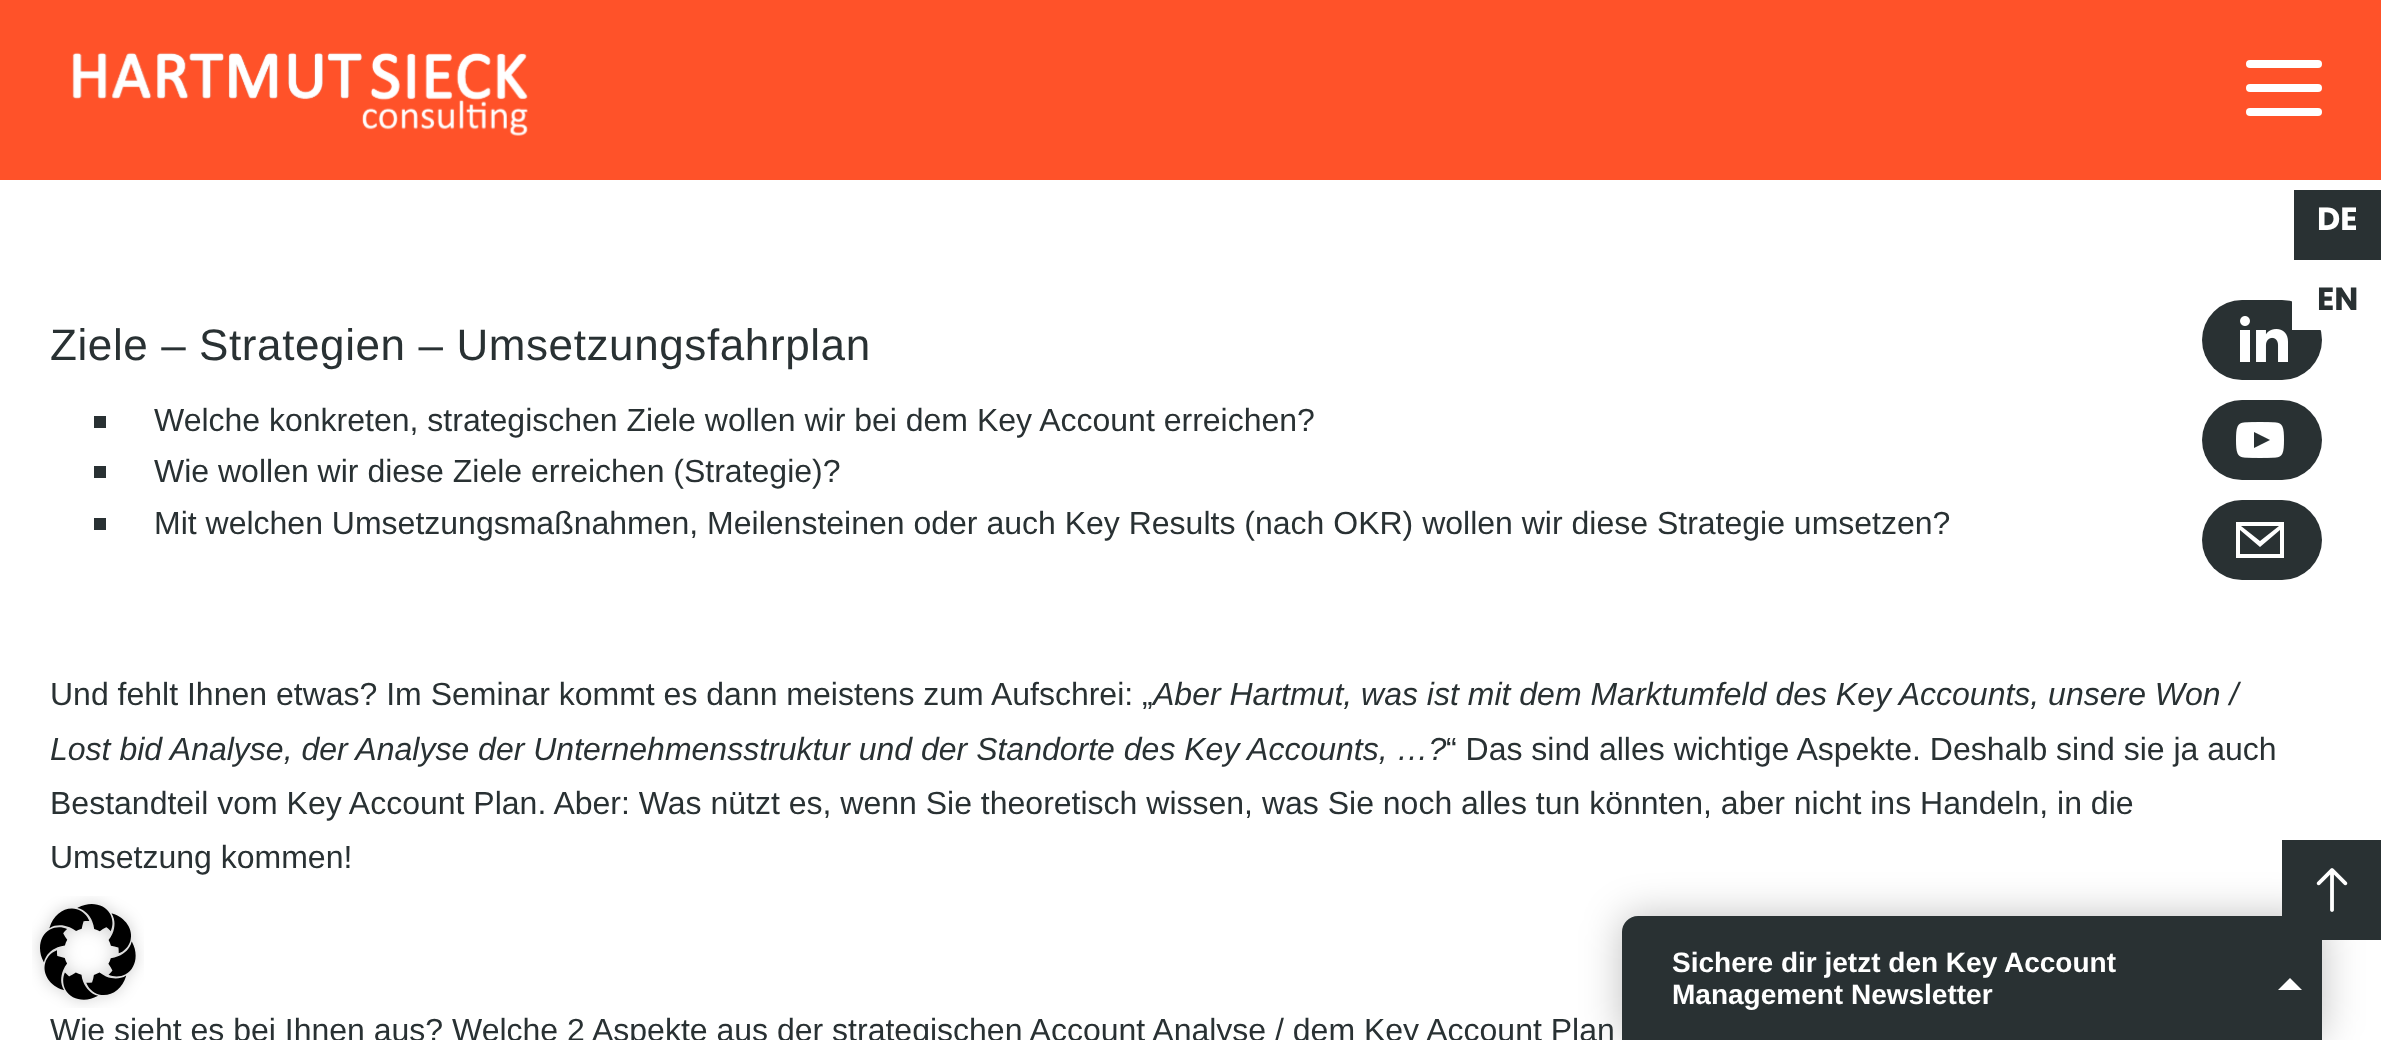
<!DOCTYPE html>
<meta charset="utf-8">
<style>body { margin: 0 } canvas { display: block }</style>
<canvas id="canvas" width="2381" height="1040"></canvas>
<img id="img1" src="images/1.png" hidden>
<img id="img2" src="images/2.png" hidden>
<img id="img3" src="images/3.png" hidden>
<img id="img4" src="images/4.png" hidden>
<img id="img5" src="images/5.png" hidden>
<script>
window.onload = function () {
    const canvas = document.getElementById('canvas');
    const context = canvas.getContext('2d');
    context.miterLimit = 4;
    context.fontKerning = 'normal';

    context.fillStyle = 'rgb(255, 255, 255)';
    context.fillRect(0, 0, 2381, 1040);
    context.fillStyle = 'rgb(255, 82, 41)';
    context.fillRect(0, 0, 2381, 180);
    context.drawImage(document.getElementById('img1'), 72, 52, 456, 84);
    context.fillStyle = 'rgb(255, 255, 255)';
    context.beginPath();
    context.roundRect(2246, 84, 76, 8, 4);
    context.fill();
    context.beginPath();
    context.roundRect(2246, 60, 76, 8, 4);
    context.fill();
    context.beginPath();
    context.roundRect(2246, 108, 76, 8, 4);
    context.fill();
    context.fillStyle = 'rgb(41, 49, 51)';
    context.fillRect(2294, 190, 87, 70);
    context.beginPath();
    context.roundRect(2202, 300, 120, 80, 40);
    context.fill();
    context.fillStyle = 'rgb(255, 255, 255)';
    context.fillRect(2292, 301, 29, 29);
    context.drawImage(document.getElementById('img2'), 2240, 316, 48, 46);
    context.fillStyle = 'rgb(41, 49, 51)';
    context.beginPath();
    context.roundRect(2202, 400, 120, 80, 40);
    context.fill();
    context.drawImage(document.getElementById('img3'), 2236, 422, 48, 36);
    context.beginPath();
    context.roundRect(2202, 500, 120, 80, 40);
    context.fill();
    context.fillStyle = 'rgb(255, 255, 255)';
    context.beginPath();
    context.moveTo(2236, 522);
    context.lineTo(2236, 558);
    context.lineTo(2284, 558);
    context.lineTo(2284, 522);
    context.closePath();
    context.moveTo(2279, 526);
    context.lineTo(2260, 541);
    context.lineTo(2241, 526);
    context.closePath();
    context.moveTo(2240, 554);
    context.lineTo(2240, 530);
    context.lineTo(2260, 547);
    context.lineTo(2280, 530);
    context.lineTo(2280, 554);
    context.closePath();
    context.fill();
    context.fillStyle = 'rgb(41, 49, 51)';
    context.fillRect(94, 416, 12, 12);
    context.fillRect(94, 466, 12, 12);
    context.fillRect(94, 518, 12, 12);
    context.fillStyle = 'rgba(0, 0, 0, 0.25)';
    context.filter = 'blur(20px)';
    context.beginPath();
    context.roundRect(1622, 916, 700, 124, 16);
    context.fill();
    context.filter = 'none';
    context.fillStyle = 'rgb(41, 49, 51)';
    context.beginPath();
    context.roundRect(1622, 916, 700, 124, [16, 16, 0, 0]);
    context.fill();
    context.fillRect(2282, 840, 99, 100);
    context.drawImage(document.getElementById('img4'), 2316, 868, 32, 44);
    context.drawImage(document.getElementById('img5'), 32, 896, 112, 112);
    context.fillStyle = 'rgb(255, 255, 255)';
    context.beginPath();
    context.moveTo(2302, 990);
    context.lineTo(2278, 990);
    context.lineTo(2290, 978);
    context.closePath();
    context.fill();
    context.font = 'bold 32px Poppins';
    context.fillText('DE', 2317, 230);
    context.fillStyle = 'rgb(41, 49, 51)';
    context.fillText('EN', 2317, 310);
    context.letterSpacing = '0.6px';
    context.font = '44px Liberation Sans';
    context.fillText('Ziele – Strategien – Umsetzungsfahrplan', 50, 360);
    context.letterSpacing = '0px';
    context.font = '32px Liberation Sans';
    context.fillText('Welche konkreten, strategischen Ziele wollen wir bei dem Key Account erreichen?', 154, 431);
    context.fillText('Wie wollen wir diese Ziele erreichen (Strategie)?', 154, 482);
    context.fillText('Mit welchen Umsetzungsmaßnahmen, Meilensteinen oder auch Key Results (nach OKR) wollen wir diese Strategie umsetzen?', 154, 534);
    context.fillText('Und fehlt Ihnen etwas? Im Seminar kommt es dann meistens zum Aufschrei: „', 50, 705);
    context.font = 'italic 32px Liberation Sans';
    context.fillText('Aber Hartmut, was ist mit dem Marktumfeld des Key Accounts, unsere Won /', 1153, 705);
    context.fillText('Lost bid Analyse, der Analyse der Unternehmensstruktur und der Standorte des Key Accounts, …?', 50, 760);
    context.font = '32px Liberation Sans';
    context.fillText('“ Das sind alles wichtige Aspekte. Deshalb sind sie ja auch', 1446, 760);
    context.fillText('Bestandteil vom Key Account Plan. Aber: Was nützt es, wenn Sie theoretisch wissen, was Sie noch alles tun könnten, aber nicht ins Handeln, in die', 50, 814);
    context.fillText('Umsetzung kommen!', 50, 868);
    context.fillText('Wie sieht es bei Ihnen aus? Welche 2 Aspekte aus der strategischen Account Analyse / dem Key Account Plan', 50, 1041);
    context.font = 'bold 28px Liberation Sans';
    context.fillStyle = 'rgb(255, 255, 255)';
    context.fillText('Sichere dir jetzt den Key Account', 1672, 972);
    context.fillText('Management Newsletter', 1672, 1004);
};
</script>
